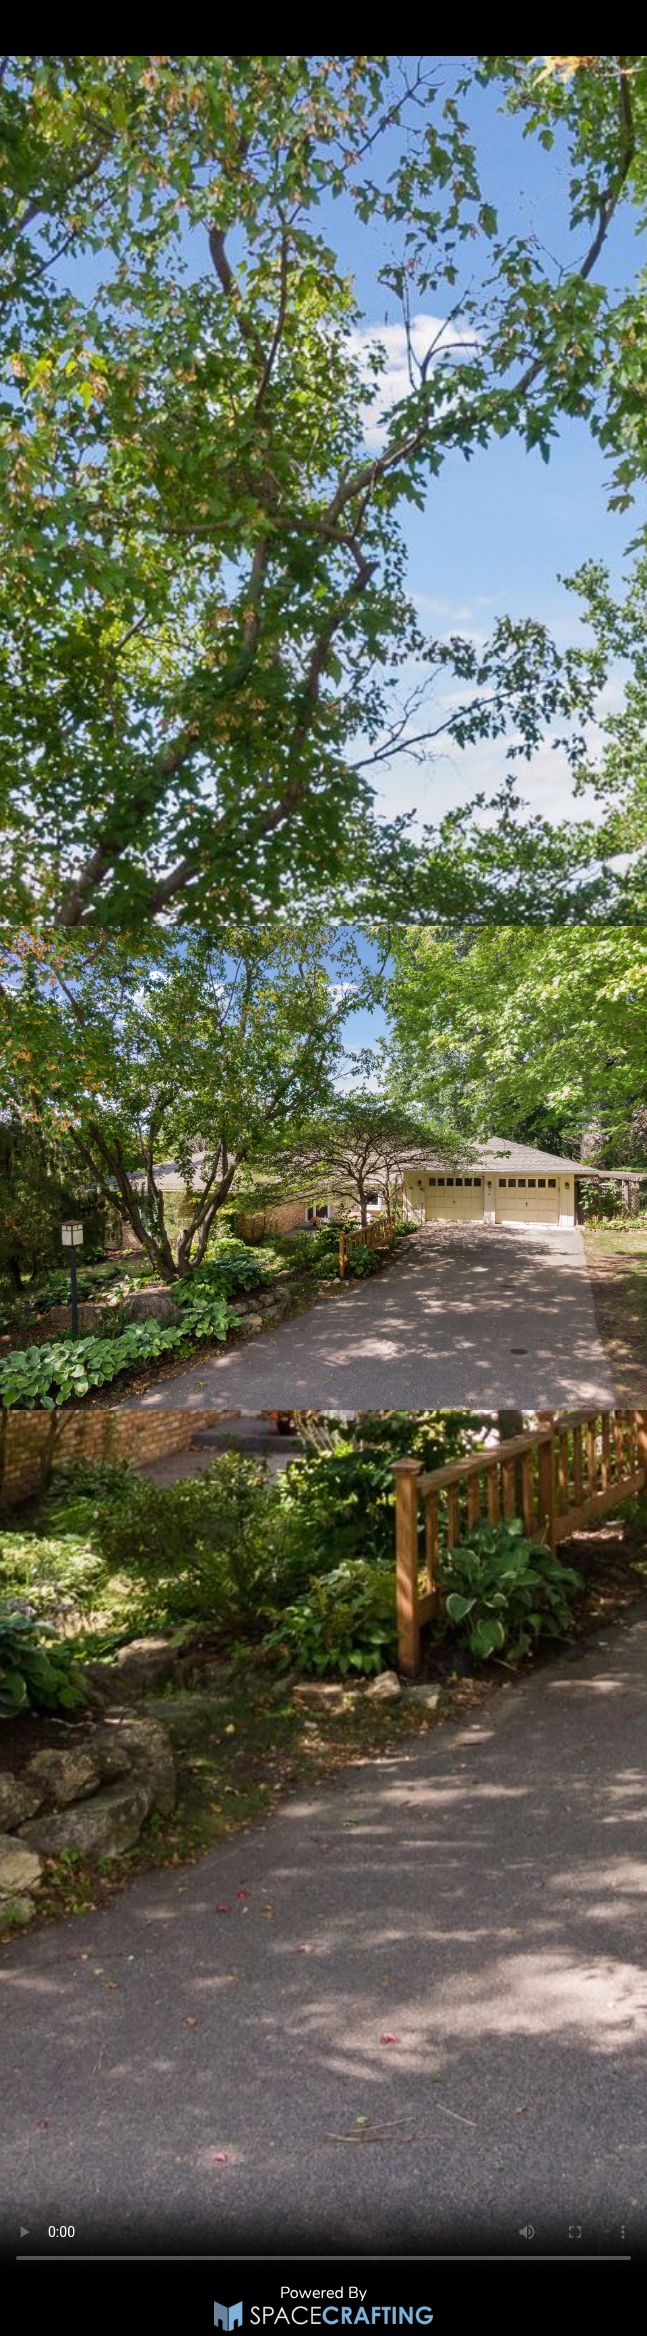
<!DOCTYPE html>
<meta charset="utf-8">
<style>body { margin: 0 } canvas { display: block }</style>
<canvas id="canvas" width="647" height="2336"></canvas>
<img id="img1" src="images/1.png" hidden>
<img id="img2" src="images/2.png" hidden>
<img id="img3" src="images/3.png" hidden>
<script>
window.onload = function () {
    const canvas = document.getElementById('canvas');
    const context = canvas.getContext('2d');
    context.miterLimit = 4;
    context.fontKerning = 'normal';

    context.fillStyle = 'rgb(255, 255, 255)';
    context.fillRect(0, 0, 647, 2336);
    context.fillStyle = 'rgb(0, 0, 0)';
    context.fillRect(0, 0, 647, 56);
    context.drawImage(document.getElementById('img1'), 0, 56, 647, 2220);
    context.drawImage(document.getElementById('img2'), 0, 926, 647, 1354);
    context.fillRect(0, 2280, 647, 56);
    context.drawImage(document.getElementById('img3'), 214, 2301, 219, 30);
    context.font = '200 16px Nunito';
    context.fillStyle = 'rgb(255, 255, 255)';
    context.fillText('Powered By', 280, 2298);
};
</script>
